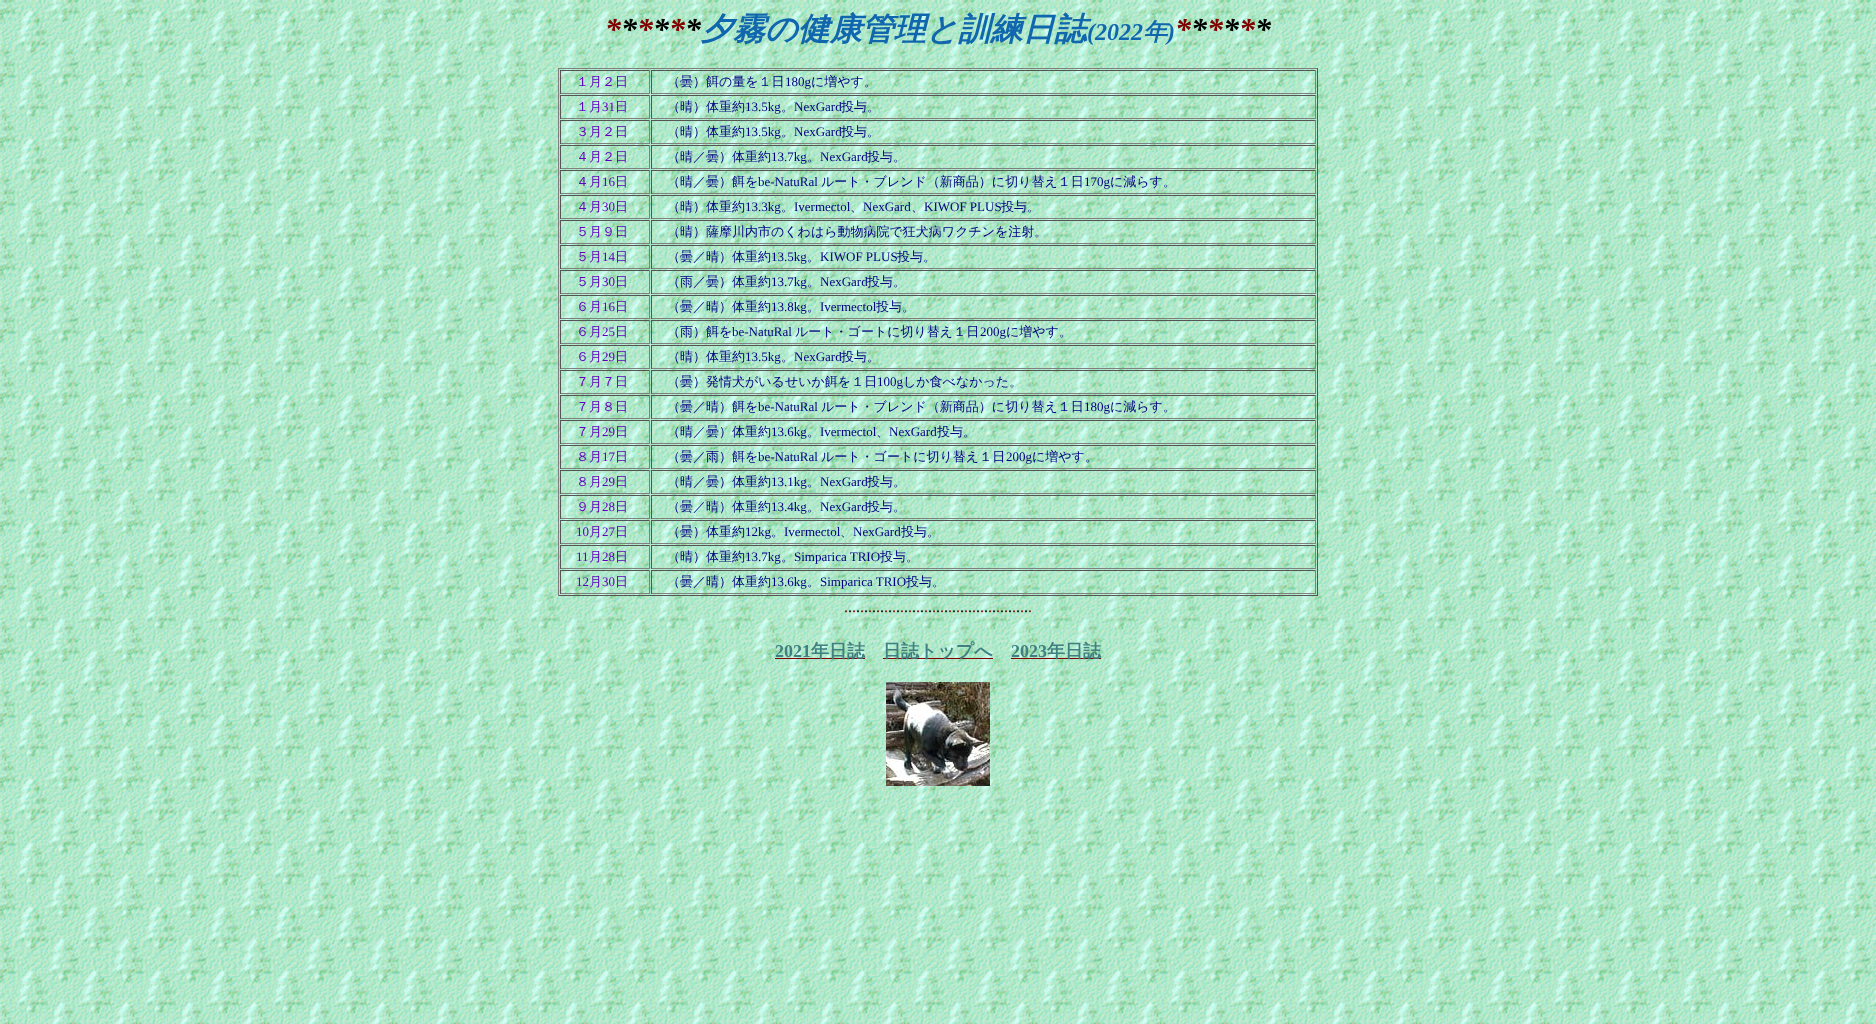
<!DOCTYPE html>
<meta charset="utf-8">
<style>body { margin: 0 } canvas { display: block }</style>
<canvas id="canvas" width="1876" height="1024"></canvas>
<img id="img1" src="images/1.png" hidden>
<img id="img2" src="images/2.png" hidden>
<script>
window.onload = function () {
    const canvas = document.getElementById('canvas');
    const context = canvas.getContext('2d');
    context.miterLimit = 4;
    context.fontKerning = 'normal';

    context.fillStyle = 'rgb(255, 255, 255)';
    context.fillRect(0, 0, 1876, 1024);
    context.drawImage(document.getElementById('img1'), 0, 0, 1876, 1024);
    context.fillStyle = 'rgb(128, 128, 128)';
    context.fillRect(558, 68, 760, 1);
    context.fillStyle = 'rgb(85, 85, 85)';
    context.fillRect(1317, 68, 1, 528);
    context.fillRect(558, 595, 760, 1);
    context.fillStyle = 'rgb(128, 128, 128)';
    context.fillRect(558, 68, 1, 528);
    context.fillStyle = 'rgb(85, 85, 85)';
    context.fillRect(560, 70, 90, 1);
    context.fillStyle = 'rgb(128, 128, 128)';
    context.fillRect(649, 70, 1, 24);
    context.fillRect(560, 93, 90, 1);
    context.fillStyle = 'rgb(85, 85, 85)';
    context.fillRect(560, 70, 1, 24);
    context.fillRect(651, 70, 665, 1);
    context.fillStyle = 'rgb(128, 128, 128)';
    context.fillRect(1315, 70, 1, 24);
    context.fillRect(651, 93, 665, 1);
    context.fillStyle = 'rgb(85, 85, 85)';
    context.fillRect(651, 70, 1, 24);
    context.fillRect(560, 95, 90, 1);
    context.fillStyle = 'rgb(128, 128, 128)';
    context.fillRect(649, 95, 1, 24);
    context.fillRect(560, 118, 90, 1);
    context.fillStyle = 'rgb(85, 85, 85)';
    context.fillRect(560, 95, 1, 24);
    context.fillRect(651, 95, 665, 1);
    context.fillStyle = 'rgb(128, 128, 128)';
    context.fillRect(1315, 95, 1, 24);
    context.fillRect(651, 118, 665, 1);
    context.fillStyle = 'rgb(85, 85, 85)';
    context.fillRect(651, 95, 1, 24);
    context.fillRect(560, 120, 90, 1);
    context.fillStyle = 'rgb(128, 128, 128)';
    context.fillRect(649, 120, 1, 24);
    context.fillRect(560, 143, 90, 1);
    context.fillStyle = 'rgb(85, 85, 85)';
    context.fillRect(560, 120, 1, 24);
    context.fillRect(651, 120, 665, 1);
    context.fillStyle = 'rgb(128, 128, 128)';
    context.fillRect(1315, 120, 1, 24);
    context.fillRect(651, 143, 665, 1);
    context.fillStyle = 'rgb(85, 85, 85)';
    context.fillRect(651, 120, 1, 24);
    context.fillRect(560, 145, 90, 1);
    context.fillStyle = 'rgb(128, 128, 128)';
    context.fillRect(649, 145, 1, 24);
    context.fillRect(560, 168, 90, 1);
    context.fillStyle = 'rgb(85, 85, 85)';
    context.fillRect(560, 145, 1, 24);
    context.fillRect(651, 145, 665, 1);
    context.fillStyle = 'rgb(128, 128, 128)';
    context.fillRect(1315, 145, 1, 24);
    context.fillRect(651, 168, 665, 1);
    context.fillStyle = 'rgb(85, 85, 85)';
    context.fillRect(651, 145, 1, 24);
    context.fillRect(560, 170, 90, 1);
    context.fillStyle = 'rgb(128, 128, 128)';
    context.fillRect(649, 170, 1, 24);
    context.fillRect(560, 193, 90, 1);
    context.fillStyle = 'rgb(85, 85, 85)';
    context.fillRect(560, 170, 1, 24);
    context.fillRect(651, 170, 665, 1);
    context.fillStyle = 'rgb(128, 128, 128)';
    context.fillRect(1315, 170, 1, 24);
    context.fillRect(651, 193, 665, 1);
    context.fillStyle = 'rgb(85, 85, 85)';
    context.fillRect(651, 170, 1, 24);
    context.fillRect(560, 195, 90, 1);
    context.fillStyle = 'rgb(128, 128, 128)';
    context.fillRect(649, 195, 1, 24);
    context.fillRect(560, 218, 90, 1);
    context.fillStyle = 'rgb(85, 85, 85)';
    context.fillRect(560, 195, 1, 24);
    context.fillRect(651, 195, 665, 1);
    context.fillStyle = 'rgb(128, 128, 128)';
    context.fillRect(1315, 195, 1, 24);
    context.fillRect(651, 218, 665, 1);
    context.fillStyle = 'rgb(85, 85, 85)';
    context.fillRect(651, 195, 1, 24);
    context.fillRect(560, 220, 90, 1);
    context.fillStyle = 'rgb(128, 128, 128)';
    context.fillRect(649, 220, 1, 24);
    context.fillRect(560, 243, 90, 1);
    context.fillStyle = 'rgb(85, 85, 85)';
    context.fillRect(560, 220, 1, 24);
    context.fillRect(651, 220, 665, 1);
    context.fillStyle = 'rgb(128, 128, 128)';
    context.fillRect(1315, 220, 1, 24);
    context.fillRect(651, 243, 665, 1);
    context.fillStyle = 'rgb(85, 85, 85)';
    context.fillRect(651, 220, 1, 24);
    context.fillRect(560, 245, 90, 1);
    context.fillStyle = 'rgb(128, 128, 128)';
    context.fillRect(649, 245, 1, 24);
    context.fillRect(560, 268, 90, 1);
    context.fillStyle = 'rgb(85, 85, 85)';
    context.fillRect(560, 245, 1, 24);
    context.fillRect(651, 245, 665, 1);
    context.fillStyle = 'rgb(128, 128, 128)';
    context.fillRect(1315, 245, 1, 24);
    context.fillRect(651, 268, 665, 1);
    context.fillStyle = 'rgb(85, 85, 85)';
    context.fillRect(651, 245, 1, 24);
    context.fillRect(560, 270, 90, 1);
    context.fillStyle = 'rgb(128, 128, 128)';
    context.fillRect(649, 270, 1, 24);
    context.fillRect(560, 293, 90, 1);
    context.fillStyle = 'rgb(85, 85, 85)';
    context.fillRect(560, 270, 1, 24);
    context.fillRect(651, 270, 665, 1);
    context.fillStyle = 'rgb(128, 128, 128)';
    context.fillRect(1315, 270, 1, 24);
    context.fillRect(651, 293, 665, 1);
    context.fillStyle = 'rgb(85, 85, 85)';
    context.fillRect(651, 270, 1, 24);
    context.fillRect(560, 295, 90, 1);
    context.fillStyle = 'rgb(128, 128, 128)';
    context.fillRect(649, 295, 1, 24);
    context.fillRect(560, 318, 90, 1);
    context.fillStyle = 'rgb(85, 85, 85)';
    context.fillRect(560, 295, 1, 24);
    context.fillRect(651, 295, 665, 1);
    context.fillStyle = 'rgb(128, 128, 128)';
    context.fillRect(1315, 295, 1, 24);
    context.fillRect(651, 318, 665, 1);
    context.fillStyle = 'rgb(85, 85, 85)';
    context.fillRect(651, 295, 1, 24);
    context.fillRect(560, 320, 90, 1);
    context.fillStyle = 'rgb(128, 128, 128)';
    context.fillRect(649, 320, 1, 24);
    context.fillRect(560, 343, 90, 1);
    context.fillStyle = 'rgb(85, 85, 85)';
    context.fillRect(560, 320, 1, 24);
    context.fillRect(651, 320, 665, 1);
    context.fillStyle = 'rgb(128, 128, 128)';
    context.fillRect(1315, 320, 1, 24);
    context.fillRect(651, 343, 665, 1);
    context.fillStyle = 'rgb(85, 85, 85)';
    context.fillRect(651, 320, 1, 24);
    context.fillRect(560, 345, 90, 1);
    context.fillStyle = 'rgb(128, 128, 128)';
    context.fillRect(649, 345, 1, 24);
    context.fillRect(560, 368, 90, 1);
    context.fillStyle = 'rgb(85, 85, 85)';
    context.fillRect(560, 345, 1, 24);
    context.fillRect(651, 345, 665, 1);
    context.fillStyle = 'rgb(128, 128, 128)';
    context.fillRect(1315, 345, 1, 24);
    context.fillRect(651, 368, 665, 1);
    context.fillStyle = 'rgb(85, 85, 85)';
    context.fillRect(651, 345, 1, 24);
    context.fillRect(560, 370, 90, 1);
    context.fillStyle = 'rgb(128, 128, 128)';
    context.fillRect(649, 370, 1, 24);
    context.fillRect(560, 393, 90, 1);
    context.fillStyle = 'rgb(85, 85, 85)';
    context.fillRect(560, 370, 1, 24);
    context.fillRect(651, 370, 665, 1);
    context.fillStyle = 'rgb(128, 128, 128)';
    context.fillRect(1315, 370, 1, 24);
    context.fillRect(651, 393, 665, 1);
    context.fillStyle = 'rgb(85, 85, 85)';
    context.fillRect(651, 370, 1, 24);
    context.fillRect(560, 395, 90, 1);
    context.fillStyle = 'rgb(128, 128, 128)';
    context.fillRect(649, 395, 1, 24);
    context.fillRect(560, 418, 90, 1);
    context.fillStyle = 'rgb(85, 85, 85)';
    context.fillRect(560, 395, 1, 24);
    context.fillRect(651, 395, 665, 1);
    context.fillStyle = 'rgb(128, 128, 128)';
    context.fillRect(1315, 395, 1, 24);
    context.fillRect(651, 418, 665, 1);
    context.fillStyle = 'rgb(85, 85, 85)';
    context.fillRect(651, 395, 1, 24);
    context.fillRect(560, 420, 90, 1);
    context.fillStyle = 'rgb(128, 128, 128)';
    context.fillRect(649, 420, 1, 24);
    context.fillRect(560, 443, 90, 1);
    context.fillStyle = 'rgb(85, 85, 85)';
    context.fillRect(560, 420, 1, 24);
    context.fillRect(651, 420, 665, 1);
    context.fillStyle = 'rgb(128, 128, 128)';
    context.fillRect(1315, 420, 1, 24);
    context.fillRect(651, 443, 665, 1);
    context.fillStyle = 'rgb(85, 85, 85)';
    context.fillRect(651, 420, 1, 24);
    context.fillRect(560, 445, 90, 1);
    context.fillStyle = 'rgb(128, 128, 128)';
    context.fillRect(649, 445, 1, 24);
    context.fillRect(560, 468, 90, 1);
    context.fillStyle = 'rgb(85, 85, 85)';
    context.fillRect(560, 445, 1, 24);
    context.fillRect(651, 445, 665, 1);
    context.fillStyle = 'rgb(128, 128, 128)';
    context.fillRect(1315, 445, 1, 24);
    context.fillRect(651, 468, 665, 1);
    context.fillStyle = 'rgb(85, 85, 85)';
    context.fillRect(651, 445, 1, 24);
    context.fillRect(560, 470, 90, 1);
    context.fillStyle = 'rgb(128, 128, 128)';
    context.fillRect(649, 470, 1, 24);
    context.fillRect(560, 493, 90, 1);
    context.fillStyle = 'rgb(85, 85, 85)';
    context.fillRect(560, 470, 1, 24);
    context.fillRect(651, 470, 665, 1);
    context.fillStyle = 'rgb(128, 128, 128)';
    context.fillRect(1315, 470, 1, 24);
    context.fillRect(651, 493, 665, 1);
    context.fillStyle = 'rgb(85, 85, 85)';
    context.fillRect(651, 470, 1, 24);
    context.fillRect(560, 495, 90, 1);
    context.fillStyle = 'rgb(128, 128, 128)';
    context.fillRect(649, 495, 1, 24);
    context.fillRect(560, 518, 90, 1);
    context.fillStyle = 'rgb(85, 85, 85)';
    context.fillRect(560, 495, 1, 24);
    context.fillRect(651, 495, 665, 1);
    context.fillStyle = 'rgb(128, 128, 128)';
    context.fillRect(1315, 495, 1, 24);
    context.fillRect(651, 518, 665, 1);
    context.fillStyle = 'rgb(85, 85, 85)';
    context.fillRect(651, 495, 1, 24);
    context.fillRect(560, 520, 90, 1);
    context.fillStyle = 'rgb(128, 128, 128)';
    context.fillRect(649, 520, 1, 24);
    context.fillRect(560, 543, 90, 1);
    context.fillStyle = 'rgb(85, 85, 85)';
    context.fillRect(560, 520, 1, 24);
    context.fillRect(651, 520, 665, 1);
    context.fillStyle = 'rgb(128, 128, 128)';
    context.fillRect(1315, 520, 1, 24);
    context.fillRect(651, 543, 665, 1);
    context.fillStyle = 'rgb(85, 85, 85)';
    context.fillRect(651, 520, 1, 24);
    context.fillRect(560, 545, 90, 1);
    context.fillStyle = 'rgb(128, 128, 128)';
    context.fillRect(649, 545, 1, 24);
    context.fillRect(560, 568, 90, 1);
    context.fillStyle = 'rgb(85, 85, 85)';
    context.fillRect(560, 545, 1, 24);
    context.fillRect(651, 545, 665, 1);
    context.fillStyle = 'rgb(128, 128, 128)';
    context.fillRect(1315, 545, 1, 24);
    context.fillRect(651, 568, 665, 1);
    context.fillStyle = 'rgb(85, 85, 85)';
    context.fillRect(651, 545, 1, 24);
    context.fillRect(560, 570, 90, 1);
    context.fillStyle = 'rgb(128, 128, 128)';
    context.fillRect(649, 570, 1, 24);
    context.fillRect(560, 593, 90, 1);
    context.fillStyle = 'rgb(85, 85, 85)';
    context.fillRect(560, 570, 1, 24);
    context.fillRect(651, 570, 665, 1);
    context.fillStyle = 'rgb(128, 128, 128)';
    context.fillRect(1315, 570, 1, 24);
    context.fillRect(651, 593, 665, 1);
    context.fillStyle = 'rgb(85, 85, 85)';
    context.fillRect(651, 570, 1, 24);
    context.fillStyle = 'rgb(128, 0, 0)';
    context.fillRect(775, 658, 90, 1);
    context.fillRect(883, 658, 110, 1);
    context.fillRect(1011, 658, 90, 1);
    context.drawImage(document.getElementById('img2'), 886, 682, 104, 104);
    context.font = 'italic bold 32px Liberation Serif';
    context.fillText('*', 605, 40);
    context.fillStyle = 'rgb(0, 0, 0)';
    context.fillText('*', 621, 40);
    context.fillStyle = 'rgb(128, 0, 0)';
    context.fillText('*', 637, 40);
    context.fillStyle = 'rgb(0, 0, 0)';
    context.fillText('*', 653, 40);
    context.fillStyle = 'rgb(128, 0, 0)';
    context.fillText('*', 669, 40);
    context.fillStyle = 'rgb(0, 0, 0)';
    context.fillText('*', 685, 40);
    context.font = 'italic bold 32px WenQuanYi Zen Hei';
    context.fillStyle = 'rgb(17, 103, 174)';
    context.fillText('夕霧の健康管理と訓練日誌', 701, 40);
    context.font = 'italic bold 24px Liberation Serif';
    context.fillText('(2022', 1087, 40);
    context.font = 'italic bold 24px WenQuanYi Zen Hei';
    context.fillText('年', 1143, 40);
    context.font = 'italic bold 32px Liberation Serif';
    context.fillStyle = 'rgb(128, 0, 0)';
    context.fillText('*', 1175, 40);
    context.fillStyle = 'rgb(0, 0, 0)';
    context.fillText('*', 1191, 40);
    context.fillStyle = 'rgb(128, 0, 0)';
    context.fillText('*', 1207, 40);
    context.fillStyle = 'rgb(0, 0, 0)';
    context.fillText('*', 1223, 40);
    context.fillStyle = 'rgb(128, 0, 0)';
    context.fillText('*', 1239, 40);
    context.fillStyle = 'rgb(0, 0, 0)';
    context.fillText('*', 1255, 40);
    context.font = 'italic bold 24px Liberation Serif';
    context.fillStyle = 'rgb(17, 103, 174)';
    context.fillText(')', 1167, 40);
    context.font = '500 13px WenQuanYi Zen Hei';
    context.fillStyle = 'rgb(96, 0, 191)';
    context.fillText('１月２日', 576, 86);
    context.fillStyle = 'rgb(0, 0, 128)';
    context.fillText('（曇）餌の量を１日', 667, 86);
    context.font = '13px Liberation Serif';
    context.fillText('180g', 785, 86);
    context.font = '500 13px WenQuanYi Zen Hei';
    context.fillText('に増やす。', 811, 86);
    context.fillStyle = 'rgb(96, 0, 191)';
    context.fillText('１月', 576, 111);
    context.font = '13px Liberation Serif';
    context.fillText('31', 602, 111);
    context.font = '500 13px WenQuanYi Zen Hei';
    context.fillText('日', 615, 111);
    context.fillStyle = 'rgb(0, 0, 128)';
    context.fillText('（晴）体重約', 667, 111);
    context.font = '13px Liberation Serif';
    context.fillText('13.5kg', 745, 111);
    context.font = '500 13px WenQuanYi Zen Hei';
    context.fillText('。', 781, 111);
    context.font = '13px Liberation Serif';
    context.fillText('NexGard', 794, 111);
    context.font = '500 13px WenQuanYi Zen Hei';
    context.fillText('投与。', 841, 111);
    context.fillStyle = 'rgb(96, 0, 191)';
    context.fillText('３月２日', 576, 136);
    context.fillStyle = 'rgb(0, 0, 128)';
    context.fillText('（晴）体重約', 667, 136);
    context.font = '13px Liberation Serif';
    context.fillText('13.5kg', 745, 136);
    context.font = '500 13px WenQuanYi Zen Hei';
    context.fillText('。', 781, 136);
    context.font = '13px Liberation Serif';
    context.fillText('NexGard', 794, 136);
    context.font = '500 13px WenQuanYi Zen Hei';
    context.fillText('投与。', 841, 136);
    context.fillStyle = 'rgb(96, 0, 191)';
    context.fillText('４月２日', 576, 161);
    context.fillStyle = 'rgb(0, 0, 128)';
    context.fillText('（晴／曇）体重約', 667, 161);
    context.font = '13px Liberation Serif';
    context.fillText('13.7kg', 771, 161);
    context.font = '500 13px WenQuanYi Zen Hei';
    context.fillText('。', 807, 161);
    context.font = '13px Liberation Serif';
    context.fillText('NexGard', 820, 161);
    context.font = '500 13px WenQuanYi Zen Hei';
    context.fillText('投与。', 867, 161);
    context.fillStyle = 'rgb(96, 0, 191)';
    context.fillText('４月', 576, 186);
    context.font = '13px Liberation Serif';
    context.fillText('16', 602, 186);
    context.font = '500 13px WenQuanYi Zen Hei';
    context.fillText('日', 615, 186);
    context.fillStyle = 'rgb(0, 0, 128)';
    context.fillText('（晴／曇）餌を', 667, 186);
    context.font = '13px Liberation Serif';
    context.fillText('be-NatuRal', 758, 186);
    context.font = '500 13px WenQuanYi Zen Hei';
    context.fillText('ルート・ブレンド（新商品）に切り替え１日', 821, 186);
    context.font = '13px Liberation Serif';
    context.fillText('170g', 1084, 186);
    context.font = '500 13px WenQuanYi Zen Hei';
    context.fillText('に減らす。', 1110, 186);
    context.fillStyle = 'rgb(96, 0, 191)';
    context.fillText('４月', 576, 211);
    context.font = '13px Liberation Serif';
    context.fillText('30', 602, 211);
    context.font = '500 13px WenQuanYi Zen Hei';
    context.fillText('日', 615, 211);
    context.fillStyle = 'rgb(0, 0, 128)';
    context.fillText('（晴）体重約', 667, 211);
    context.font = '13px Liberation Serif';
    context.fillText('13.3kg', 745, 211);
    context.font = '500 13px WenQuanYi Zen Hei';
    context.fillText('。', 781, 211);
    context.font = '13px Liberation Serif';
    context.fillText('Ivermectol', 794, 211);
    context.font = '500 13px WenQuanYi Zen Hei';
    context.fillText('、', 850, 211);
    context.font = '13px Liberation Serif';
    context.fillText('NexGard', 863, 211);
    context.font = '500 13px WenQuanYi Zen Hei';
    context.fillText('、', 911, 211);
    context.font = '13px Liberation Serif';
    context.fillText('KIWOF PLUS', 924, 211);
    context.font = '500 13px WenQuanYi Zen Hei';
    context.fillText('投与。', 1001, 211);
    context.fillStyle = 'rgb(96, 0, 191)';
    context.fillText('５月９日', 576, 236);
    context.fillStyle = 'rgb(0, 0, 128)';
    context.fillText('（晴）薩摩川内市のくわはら動物病院で狂犬病ワクチンを注射。', 667, 236);
    context.fillStyle = 'rgb(96, 0, 191)';
    context.fillText('５月', 576, 261);
    context.font = '13px Liberation Serif';
    context.fillText('14', 602, 261);
    context.font = '500 13px WenQuanYi Zen Hei';
    context.fillText('日', 615, 261);
    context.fillStyle = 'rgb(0, 0, 128)';
    context.fillText('（曇／晴）体重約', 667, 261);
    context.font = '13px Liberation Serif';
    context.fillText('13.5kg', 771, 261);
    context.font = '500 13px WenQuanYi Zen Hei';
    context.fillText('。', 807, 261);
    context.font = '13px Liberation Serif';
    context.fillText('KIWOF PLUS', 820, 261);
    context.font = '500 13px WenQuanYi Zen Hei';
    context.fillText('投与。', 897, 261);
    context.fillStyle = 'rgb(96, 0, 191)';
    context.fillText('５月', 576, 286);
    context.font = '13px Liberation Serif';
    context.fillText('30', 602, 286);
    context.font = '500 13px WenQuanYi Zen Hei';
    context.fillText('日', 615, 286);
    context.fillStyle = 'rgb(0, 0, 128)';
    context.fillText('（雨／曇）体重約', 667, 286);
    context.font = '13px Liberation Serif';
    context.fillText('13.7kg', 771, 286);
    context.font = '500 13px WenQuanYi Zen Hei';
    context.fillText('。', 807, 286);
    context.font = '13px Liberation Serif';
    context.fillText('NexGard', 820, 286);
    context.font = '500 13px WenQuanYi Zen Hei';
    context.fillText('投与。', 867, 286);
    context.fillStyle = 'rgb(96, 0, 191)';
    context.fillText('６月', 576, 311);
    context.font = '13px Liberation Serif';
    context.fillText('16', 602, 311);
    context.font = '500 13px WenQuanYi Zen Hei';
    context.fillText('日', 615, 311);
    context.fillStyle = 'rgb(0, 0, 128)';
    context.fillText('（曇／晴）体重約', 667, 311);
    context.font = '13px Liberation Serif';
    context.fillText('13.8kg', 771, 311);
    context.font = '500 13px WenQuanYi Zen Hei';
    context.fillText('。', 807, 311);
    context.font = '13px Liberation Serif';
    context.fillText('Ivermectol', 820, 311);
    context.font = '500 13px WenQuanYi Zen Hei';
    context.fillText('投与。', 876, 311);
    context.fillStyle = 'rgb(96, 0, 191)';
    context.fillText('６月', 576, 336);
    context.font = '13px Liberation Serif';
    context.fillText('25', 602, 336);
    context.font = '500 13px WenQuanYi Zen Hei';
    context.fillText('日', 615, 336);
    context.fillStyle = 'rgb(0, 0, 128)';
    context.fillText('（雨）餌を', 667, 336);
    context.font = '13px Liberation Serif';
    context.fillText('be-NatuRal', 732, 336);
    context.font = '500 13px WenQuanYi Zen Hei';
    context.fillText('ルート・ゴートに切り替え１日', 795, 336);
    context.font = '13px Liberation Serif';
    context.fillText('200g', 980, 336);
    context.font = '500 13px WenQuanYi Zen Hei';
    context.fillText('に増やす。', 1006, 336);
    context.fillStyle = 'rgb(96, 0, 191)';
    context.fillText('６月', 576, 361);
    context.font = '13px Liberation Serif';
    context.fillText('29', 602, 361);
    context.font = '500 13px WenQuanYi Zen Hei';
    context.fillText('日', 615, 361);
    context.fillStyle = 'rgb(0, 0, 128)';
    context.fillText('（晴）体重約', 667, 361);
    context.font = '13px Liberation Serif';
    context.fillText('13.5kg', 745, 361);
    context.font = '500 13px WenQuanYi Zen Hei';
    context.fillText('。', 781, 361);
    context.font = '13px Liberation Serif';
    context.fillText('NexGard', 794, 361);
    context.font = '500 13px WenQuanYi Zen Hei';
    context.fillText('投与。', 841, 361);
    context.fillStyle = 'rgb(96, 0, 191)';
    context.fillText('７月７日', 576, 386);
    context.fillStyle = 'rgb(0, 0, 128)';
    context.fillText('（曇）発情犬がいるせいか餌を１日', 667, 386);
    context.font = '13px Liberation Serif';
    context.fillText('100g', 877, 386);
    context.font = '500 13px WenQuanYi Zen Hei';
    context.fillText('しか食べなかった。', 903, 386);
    context.fillStyle = 'rgb(96, 0, 191)';
    context.fillText('７月８日', 576, 411);
    context.fillStyle = 'rgb(0, 0, 128)';
    context.fillText('（曇／晴）餌を', 667, 411);
    context.font = '13px Liberation Serif';
    context.fillText('be-NatuRal', 758, 411);
    context.font = '500 13px WenQuanYi Zen Hei';
    context.fillText('ルート・ブレンド（新商品）に切り替え１日', 821, 411);
    context.font = '13px Liberation Serif';
    context.fillText('180g', 1084, 411);
    context.font = '500 13px WenQuanYi Zen Hei';
    context.fillText('に減らす。', 1110, 411);
    context.fillStyle = 'rgb(96, 0, 191)';
    context.fillText('７月', 576, 436);
    context.font = '13px Liberation Serif';
    context.fillText('29', 602, 436);
    context.font = '500 13px WenQuanYi Zen Hei';
    context.fillText('日', 615, 436);
    context.fillStyle = 'rgb(0, 0, 128)';
    context.fillText('（晴／曇）体重約', 667, 436);
    context.font = '13px Liberation Serif';
    context.fillText('13.6kg', 771, 436);
    context.font = '500 13px WenQuanYi Zen Hei';
    context.fillText('。', 807, 436);
    context.font = '13px Liberation Serif';
    context.fillText('Ivermectol', 820, 436);
    context.font = '500 13px WenQuanYi Zen Hei';
    context.fillText('、', 876, 436);
    context.font = '13px Liberation Serif';
    context.fillText('NexGard', 889, 436);
    context.font = '500 13px WenQuanYi Zen Hei';
    context.fillText('投与。', 937, 436);
    context.fillStyle = 'rgb(96, 0, 191)';
    context.fillText('８月', 576, 461);
    context.font = '13px Liberation Serif';
    context.fillText('17', 602, 461);
    context.font = '500 13px WenQuanYi Zen Hei';
    context.fillText('日', 615, 461);
    context.fillStyle = 'rgb(0, 0, 128)';
    context.fillText('（曇／雨）餌を', 667, 461);
    context.font = '13px Liberation Serif';
    context.fillText('be-NatuRal', 758, 461);
    context.font = '500 13px WenQuanYi Zen Hei';
    context.fillText('ルート・ゴートに切り替え１日', 821, 461);
    context.font = '13px Liberation Serif';
    context.fillText('200g', 1006, 461);
    context.font = '500 13px WenQuanYi Zen Hei';
    context.fillText('に増やす。', 1032, 461);
    context.fillStyle = 'rgb(96, 0, 191)';
    context.fillText('８月', 576, 486);
    context.font = '13px Liberation Serif';
    context.fillText('29', 602, 486);
    context.font = '500 13px WenQuanYi Zen Hei';
    context.fillText('日', 615, 486);
    context.fillStyle = 'rgb(0, 0, 128)';
    context.fillText('（晴／曇）体重約', 667, 486);
    context.font = '13px Liberation Serif';
    context.fillText('13.1kg', 771, 486);
    context.font = '500 13px WenQuanYi Zen Hei';
    context.fillText('。', 807, 486);
    context.font = '13px Liberation Serif';
    context.fillText('NexGard', 820, 486);
    context.font = '500 13px WenQuanYi Zen Hei';
    context.fillText('投与。', 867, 486);
    context.fillStyle = 'rgb(96, 0, 191)';
    context.fillText('９月', 576, 511);
    context.font = '13px Liberation Serif';
    context.fillText('28', 602, 511);
    context.font = '500 13px WenQuanYi Zen Hei';
    context.fillText('日', 615, 511);
    context.fillStyle = 'rgb(0, 0, 128)';
    context.fillText('（曇／晴）体重約', 667, 511);
    context.font = '13px Liberation Serif';
    context.fillText('13.4kg', 771, 511);
    context.font = '500 13px WenQuanYi Zen Hei';
    context.fillText('。', 807, 511);
    context.font = '13px Liberation Serif';
    context.fillText('NexGard', 820, 511);
    context.font = '500 13px WenQuanYi Zen Hei';
    context.fillText('投与。', 867, 511);
    context.font = '13px Liberation Serif';
    context.fillStyle = 'rgb(96, 0, 191)';
    context.fillText('10', 576, 536);
    context.font = '500 13px WenQuanYi Zen Hei';
    context.fillText('月', 589, 536);
    context.font = '13px Liberation Serif';
    context.fillText('27', 602, 536);
    context.font = '500 13px WenQuanYi Zen Hei';
    context.fillText('日', 615, 536);
    context.fillStyle = 'rgb(0, 0, 128)';
    context.fillText('（曇）体重約', 667, 536);
    context.font = '13px Liberation Serif';
    context.fillText('12kg', 745, 536);
    context.font = '500 13px WenQuanYi Zen Hei';
    context.fillText('。', 771, 536);
    context.font = '13px Liberation Serif';
    context.fillText('Ivermectol', 784, 536);
    context.font = '500 13px WenQuanYi Zen Hei';
    context.fillText('、', 840, 536);
    context.font = '13px Liberation Serif';
    context.fillText('NexGard', 853, 536);
    context.font = '500 13px WenQuanYi Zen Hei';
    context.fillText('投与。', 901, 536);
    context.font = '13px Liberation Serif';
    context.fillStyle = 'rgb(96, 0, 191)';
    context.fillText('11', 576, 561);
    context.font = '500 13px WenQuanYi Zen Hei';
    context.fillText('月', 589, 561);
    context.font = '13px Liberation Serif';
    context.fillText('28', 602, 561);
    context.font = '500 13px WenQuanYi Zen Hei';
    context.fillText('日', 615, 561);
    context.fillStyle = 'rgb(0, 0, 128)';
    context.fillText('（晴）体重約', 667, 561);
    context.font = '13px Liberation Serif';
    context.fillText('13.7kg', 745, 561);
    context.font = '500 13px WenQuanYi Zen Hei';
    context.fillText('。', 781, 561);
    context.font = '13px Liberation Serif';
    context.fillText('Simparica TRIO', 794, 561);
    context.font = '500 13px WenQuanYi Zen Hei';
    context.fillText('投与。', 880, 561);
    context.font = '13px Liberation Serif';
    context.fillStyle = 'rgb(96, 0, 191)';
    context.fillText('12', 576, 586);
    context.font = '500 13px WenQuanYi Zen Hei';
    context.fillText('月', 589, 586);
    context.font = '13px Liberation Serif';
    context.fillText('30', 602, 586);
    context.font = '500 13px WenQuanYi Zen Hei';
    context.fillText('日', 615, 586);
    context.fillStyle = 'rgb(0, 0, 128)';
    context.fillText('（曇／晴）体重約', 667, 586);
    context.font = '13px Liberation Serif';
    context.fillText('13.6kg', 771, 586);
    context.font = '500 13px WenQuanYi Zen Hei';
    context.fillText('。', 807, 586);
    context.font = '13px Liberation Serif';
    context.fillText('Simparica TRIO', 820, 586);
    context.font = '500 13px WenQuanYi Zen Hei';
    context.fillText('投与。', 906, 586);
    context.font = '16px Liberation Serif';
    context.fillStyle = 'rgb(128, 0, 0)';
    context.fillText('. . . . . . . . . . . . . . . . . . . . . . . .', 844, 612);
    context.fillStyle = 'rgb(0, 0, 0)';
    context.fillText('. . . . . . . . . . . . . . . . . . . . . . .', 848, 612);
    context.font = 'bold 18px Liberation Serif';
    context.fillStyle = 'rgb(64, 128, 128)';
    context.fillText('2021', 775, 657);
    context.font = 'bold 18px WenQuanYi Zen Hei';
    context.fillText('年日誌', 811, 657);
    context.fillText('日誌トップへ', 883, 657);
    context.font = 'bold 18px Liberation Serif';
    context.fillText('2023', 1011, 657);
    context.font = 'bold 18px WenQuanYi Zen Hei';
    context.fillText('年日誌', 1047, 657);
};
</script>
